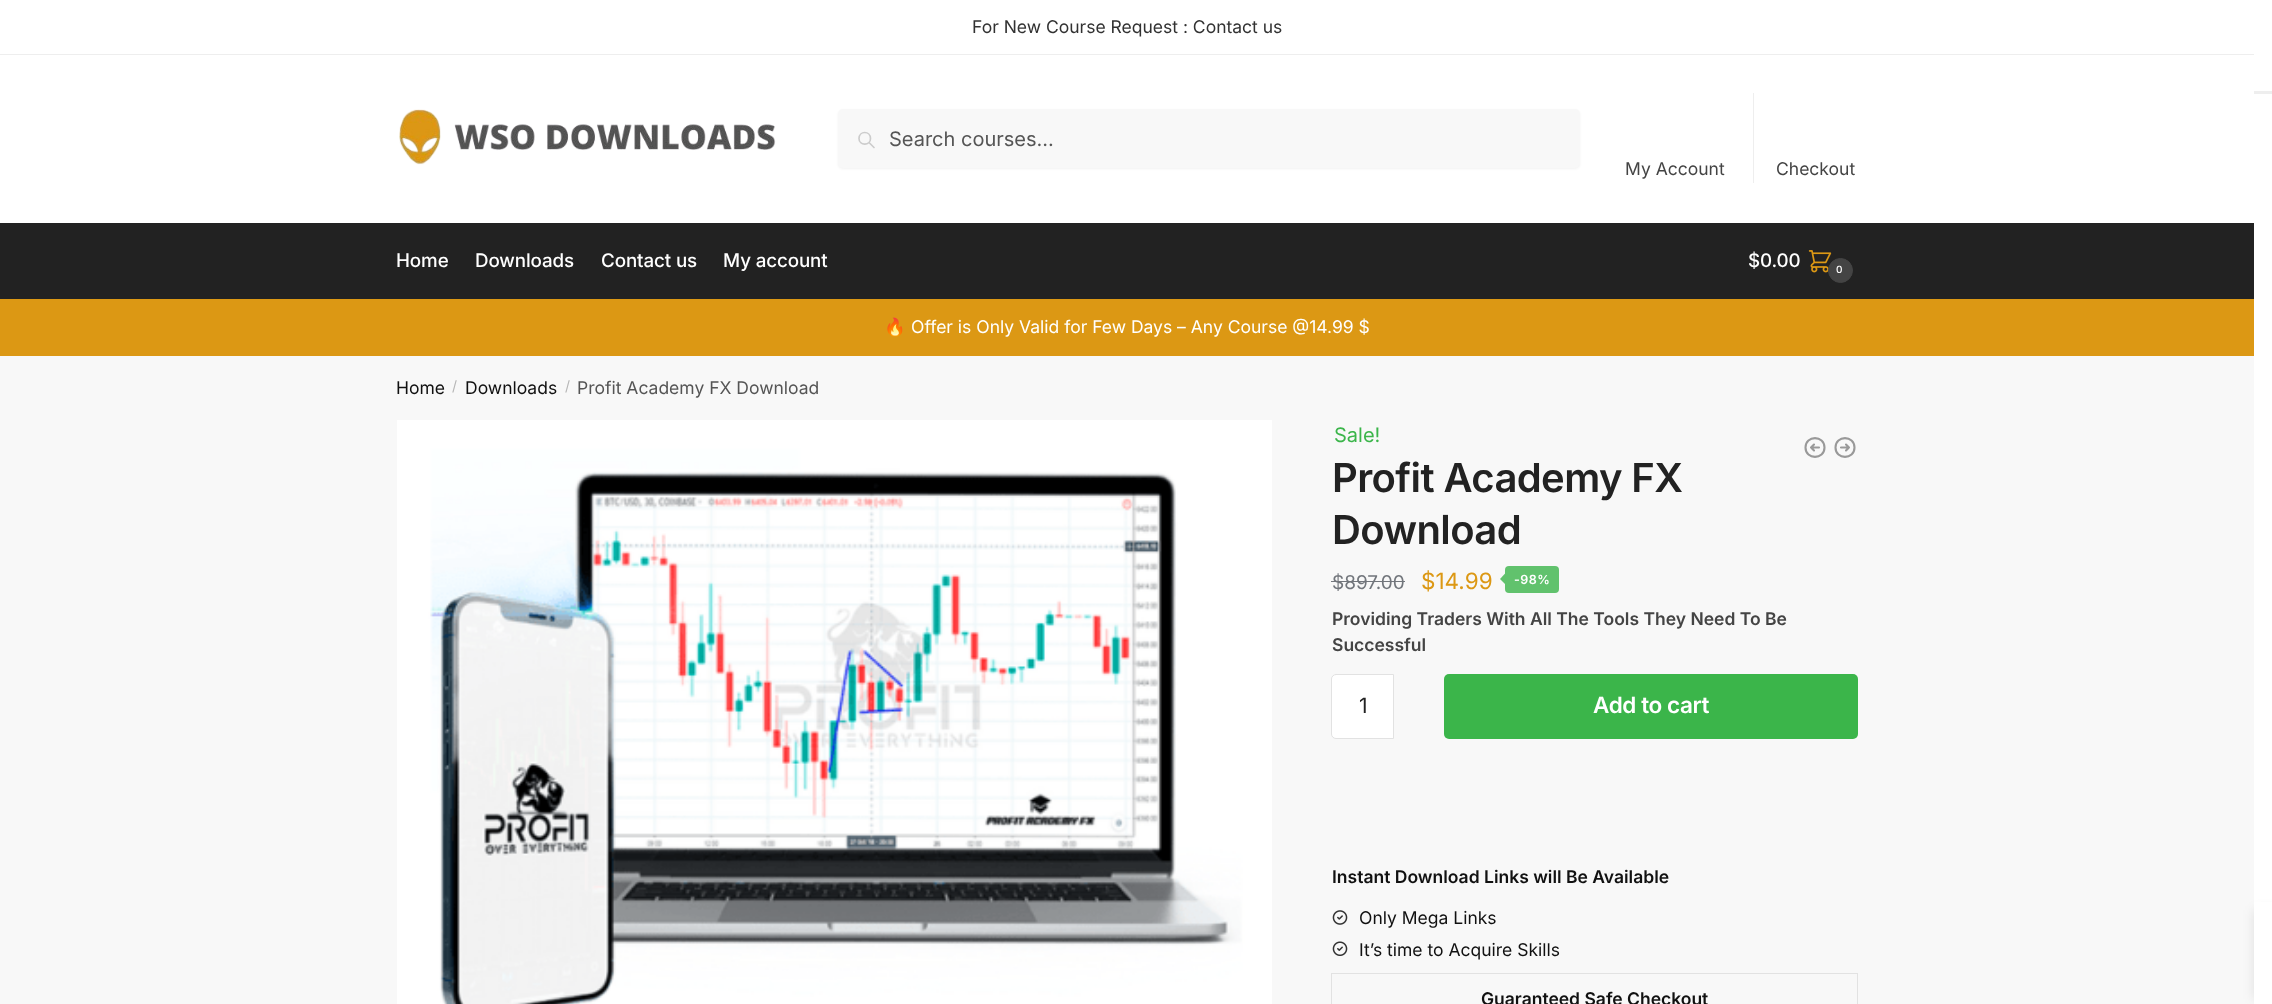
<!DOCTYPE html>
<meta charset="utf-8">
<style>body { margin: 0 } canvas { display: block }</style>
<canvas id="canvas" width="2272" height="1004"></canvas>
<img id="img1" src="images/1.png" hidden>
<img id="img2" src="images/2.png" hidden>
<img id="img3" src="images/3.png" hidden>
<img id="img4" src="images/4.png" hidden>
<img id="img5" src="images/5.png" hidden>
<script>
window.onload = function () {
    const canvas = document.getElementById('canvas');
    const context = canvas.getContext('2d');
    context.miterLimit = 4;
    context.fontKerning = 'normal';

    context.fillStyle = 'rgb(255, 255, 255)';
    context.fillRect(0, 0, 2272, 1004);
    context.fillStyle = 'rgb(238, 238, 238)';
    context.fillRect(0, 54, 2254, 1);
    context.drawImage(document.getElementById('img1'), 399, 109, 377, 56);
    context.fillStyle = 'rgba(0, 0, 0, 0.05)';
    context.filter = 'blur(1px)';
    context.beginPath();
    context.roundRect(838, 110, 742, 59, 5);
    context.fill();
    context.filter = 'none';
    context.fillStyle = 'rgb(248, 248, 248)';
    context.beginPath();
    context.roundRect(838, 109, 742, 59, 5);
    context.fill();
    context.beginPath();
    context.moveTo(874, 147.5);
    context.lineTo(869, 142.5);
    context.moveTo(870.5, 138.5);
    context.bezierCurveTo(870.5, 146, 859, 146, 859, 138.5);
    context.bezierCurveTo(859, 130.5, 870.5, 130.5, 870.5, 138.5);
    context.closePath();
    context.strokeStyle = 'rgb(204, 204, 204)';
    context.lineWidth = 1.7;
    context.lineCap = 'round';
    context.lineJoin = 'round';
    context.stroke();
    context.fillStyle = 'rgb(238, 238, 238)';
    context.fillRect(1753, 93, 1, 90);
    context.fillStyle = 'rgb(34, 34, 34)';
    context.fillRect(0, 223, 2254, 76);
    context.drawImage(document.getElementById('img2'), 1808, 250, 24, 23);
    context.fillStyle = 'rgb(68, 68, 68)';
    context.beginPath();
    context.arc(1840.5, 270.5, 12, 0, 2 * Math.PI);
    context.fill();
    context.strokeStyle = 'rgb(68, 68, 68)';
    context.lineWidth = 1;
    context.stroke();
    context.fillStyle = 'rgb(220, 152, 20)';
    context.fillRect(0, 299, 2254, 57);
    context.fillStyle = 'rgb(248, 248, 248)';
    context.fillRect(0, 356, 2254, 648);
    context.drawImage(document.getElementById('img3'), 397, 420, 875, 584);
    context.beginPath();
    context.moveTo(1814, 450.5);
    context.lineTo(1811, 447.5);
    context.moveTo(1811, 447.5);
    context.lineTo(1814, 444.5);
    context.moveTo(1811, 447.5);
    context.lineTo(1819, 447.5);
    context.moveTo(1805.5, 447.5);
    context.bezierCurveTo(1805.5, 435, 1824.5, 435, 1824.5, 447.5);
    context.bezierCurveTo(1824.5, 460, 1805.5, 460, 1805.5, 447.5);
    context.closePath();
    context.moveTo(1846, 444.5);
    context.lineTo(1849, 447.5);
    context.moveTo(1849, 447.5);
    context.lineTo(1846, 450.5);
    context.moveTo(1849, 447.5);
    context.lineTo(1841, 447.5);
    context.moveTo(1854.5, 447.5);
    context.bezierCurveTo(1854.5, 460, 1835.5, 460, 1835.5, 447.5);
    context.bezierCurveTo(1835.5, 435, 1854.5, 435, 1854.5, 447.5);
    context.closePath();
    context.strokeStyle = 'rgb(153, 153, 153)';
    context.lineWidth = 2.1;
    context.stroke();
    context.fillStyle = 'rgb(114, 118, 124)';
    context.fillRect(1331, 581, 74, 1);
    context.fillStyle = 'rgb(97, 194, 109)';
    context.beginPath();
    context.roundRect(1505, 566, 54, 27, 4);
    context.fill();
    context.beginPath();
    context.moveTo(1506, 572.5);
    context.lineTo(1506, 585);
    context.lineTo(1500, 579);
    context.closePath();
    context.fill();
    context.fillStyle = 'rgb(255, 255, 255)';
    context.beginPath();
    context.roundRect(1331.5, 674.5, 62, 64, [4.5, 0, 0, 4.5]);
    context.fill();
    context.strokeStyle = 'rgb(226, 226, 226)';
    context.lineWidth = 1;
    context.lineJoin = 'miter';
    context.stroke();
    context.fillStyle = 'rgb(59, 181, 74)';
    context.beginPath();
    context.roundRect(1444, 674, 414, 65, 5);
    context.fill();
    context.drawImage(document.getElementById('img4'), 1332, 910, 16, 15);
    context.drawImage(document.getElementById('img5'), 1332, 941, 16, 15);
    context.strokeRect(1331.5, 973.5, 526, 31);
    context.fillStyle = 'rgb(238, 238, 238)';
    context.fillRect(2254, 91, 18, 3);
    context.fillStyle = 'rgba(0, 0, 0, 0.1)';
    context.filter = 'blur(6px)';
    context.beginPath();
    context.rect(2254, 910, 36, 89);
    context.fill();
    context.filter = 'none';
    context.fillStyle = 'rgb(255, 255, 255)';
    context.fillRect(2254, 902, 18, 102);
    context.font = '17.5px Inter';
    context.fillStyle = 'rgb(50, 50, 50)';
    context.fillText('For New Course Request : Contact us', 972, 33);
    context.font = '20px Inter';
    context.fillStyle = 'rgb(85, 85, 85)';
    context.fillText('Search courses...', 889, 146);
    context.font = '17.5px Inter';
    context.fillStyle = 'rgb(68, 68, 68)';
    context.fillText('My Account', 1625, 175);
    context.fillText('Checkout', 1776, 175);
    context.letterSpacing = '-0.1px';
    context.font = '500 18.75px Inter';
    context.fillStyle = 'rgb(255, 255, 255)';
    context.fillText('Home', 396, 267);
    context.fillText('Downloads', 475, 267);
    context.fillText('Contact us', 601, 267);
    context.fillText('My account', 723, 267);
    context.fillText('$0.00', 1748, 267);
    context.font = '500 10px Inter';
    context.fillText('0', 1836, 273);
    context.letterSpacing = '0px';
    context.font = '17.5px Noto Color Emoji';
    context.fillText('🔥', 884, 333);
    context.font = '17.5px Inter';
    context.fillText('Offer is Only Valid for Few Days – Any Course @14.99 $', 911, 333);
    context.fillStyle = 'rgb(17, 17, 17)';
    context.fillText('Home', 396, 394);
    context.font = '14px Inter';
    context.fillStyle = 'rgb(183, 183, 183)';
    context.fillText('/', 452, 391);
    context.font = '17.5px Inter';
    context.fillStyle = 'rgb(17, 17, 17)';
    context.fillText('Downloads', 465, 394);
    context.font = '14px Inter';
    context.fillStyle = 'rgb(183, 183, 183)';
    context.fillText('/', 565, 391);
    context.font = '17.5px Inter';
    context.fillStyle = 'rgb(85, 85, 85)';
    context.fillText('Profit Academy FX Download', 577, 394);
    context.font = '20px Inter';
    context.fillStyle = 'rgb(59, 181, 74)';
    context.fillText('Sale!', 1334, 442);
    context.letterSpacing = '-0.6px';
    context.font = '600 40px Inter';
    context.fillStyle = 'rgb(34, 34, 34)';
    context.fillText('Profit Academy FX', 1332, 492);
    context.fillText('Download', 1332, 544);
    context.letterSpacing = '0px';
    context.font = '19px Inter';
    context.fillStyle = 'rgb(114, 118, 124)';
    context.fillText('$897.00', 1332, 589);
    context.font = '22.5px Inter';
    context.fillStyle = 'rgb(220, 152, 20)';
    context.fillText('$14.99', 1421, 589);
    context.letterSpacing = '0.5px';
    context.font = '600 12.5px Inter';
    context.fillStyle = 'rgb(255, 255, 255)';
    context.fillText('-98%', 1514, 584);
    context.letterSpacing = '0px';
    context.font = '600 17.5px Inter';
    context.fillStyle = 'rgb(68, 68, 68)';
    context.fillText('Providing Traders With All The Tools They Need To Be', 1332, 625);
    context.fillText('Successful', 1332, 651);
    context.font = '21px Inter';
    context.fillStyle = 'rgb(34, 34, 34)';
    context.fillText('1', 1359, 713);
    context.letterSpacing = '-0.4px';
    context.font = '600 22.5px Inter';
    context.fillStyle = 'rgb(255, 255, 255)';
    context.fillText('Add to cart', 1593, 713);
    context.letterSpacing = '0px';
    context.font = '600 17.5px Inter';
    context.fillStyle = 'rgb(17, 17, 17)';
    context.fillText('Instant Download Links will Be Available', 1332, 883);
    context.font = '17.5px Inter';
    context.fillText('Only Mega Links', 1359, 924);
    context.fillText('It’s time to Acquire Skills', 1359, 956);
    context.font = '600 17.5px Inter';
    context.fillText('Guaranteed Safe Checkout', 1481, 1005);
};
</script>
